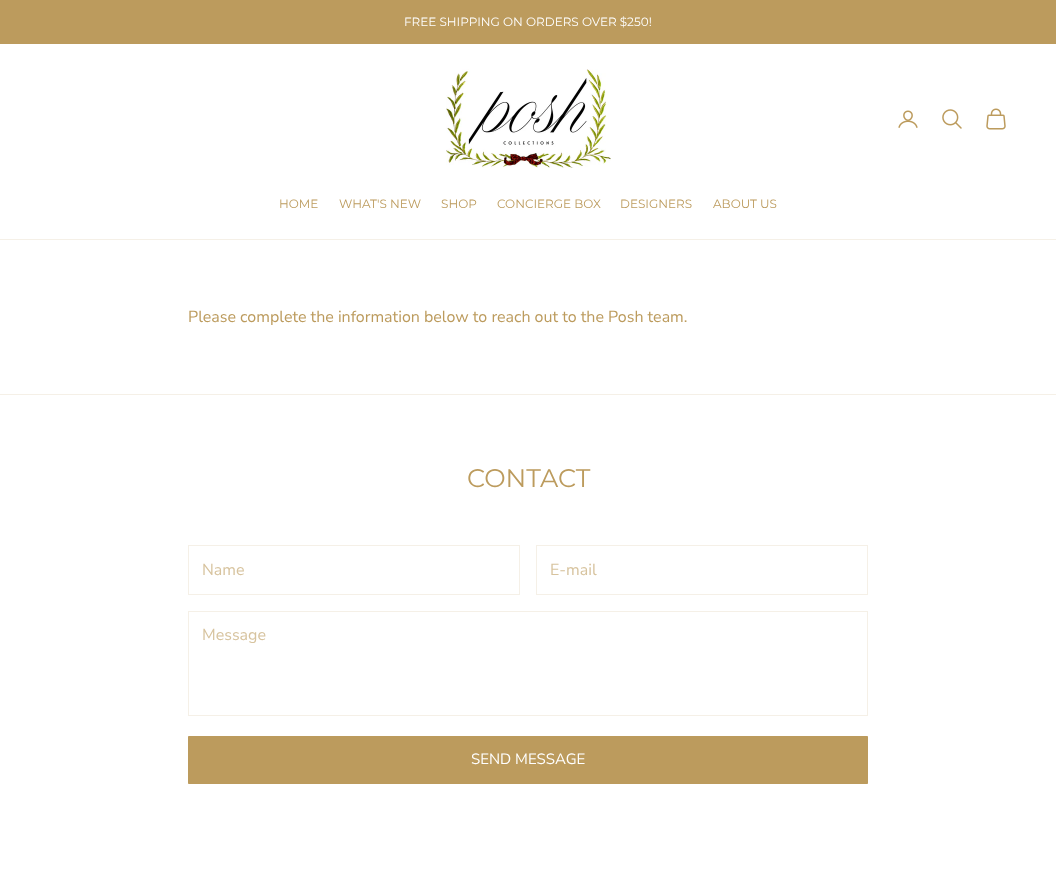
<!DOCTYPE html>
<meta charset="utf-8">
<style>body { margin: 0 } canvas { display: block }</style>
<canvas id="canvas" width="1056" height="872"></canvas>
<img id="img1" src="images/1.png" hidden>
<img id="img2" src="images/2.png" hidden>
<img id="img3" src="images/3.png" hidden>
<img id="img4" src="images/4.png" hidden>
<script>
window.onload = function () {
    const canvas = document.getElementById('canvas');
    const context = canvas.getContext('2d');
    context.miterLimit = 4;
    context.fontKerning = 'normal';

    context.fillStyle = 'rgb(255, 255, 255)';
    context.fillRect(0, 0, 1056, 872);
    context.fillStyle = 'rgb(188, 155, 93)';
    context.fillRect(0, 0, 1056, 44);
    context.fillStyle = 'rgb(245, 240, 231)';
    context.fillRect(0, 239, 1056, 1);
    context.drawImage(document.getElementById('img1'), 446, 69, 165, 99);
    context.drawImage(document.getElementById('img2'), 898, 110, 20, 18);
    context.drawImage(document.getElementById('img3'), 942, 109, 20, 20);
    context.drawImage(document.getElementById('img4'), 986, 108, 20, 22);
    context.fillRect(0, 394, 1056, 1);
    context.strokeStyle = 'rgb(245, 240, 231)';
    context.strokeRect(188.5, 545.5, 331, 49);
    context.strokeRect(536.5, 545.5, 331, 49);
    context.strokeRect(188.5, 611.5, 679, 104);
    context.fillStyle = 'rgb(188, 155, 93)';
    context.beginPath();
    context.rect(188.5, 736.5, 679, 47);
    context.fill();
    context.strokeStyle = 'rgb(188, 155, 93)';
    context.stroke();
    context.font = '12px Montserrat';
    context.fillStyle = 'rgb(255, 255, 255)';
    context.fillText('FREE SHIPPING ON ORDERS OVER $250!', 404, 26);
    context.fillStyle = 'rgb(188, 155, 93)';
    context.fillText('HOME', 279, 208);
    context.fillText('WHAT\'S NEW', 339, 208);
    context.fillText('SHOP', 441, 208);
    context.fillText('CONCIERGE BOX', 497, 208);
    context.fillText('DESIGNERS', 620, 208);
    context.fillText('ABOUT US', 713, 208);
    context.font = '16px Nunito Sans';
    context.fillText('Please complete the information below to reach out to the Posh team.', 188, 322);
    context.font = '25.5px Montserrat';
    context.fillText('CONTACT', 467, 487);
    context.font = '16px Nunito Sans';
    context.fillStyle = 'rgb(215, 195, 158)';
    context.fillText('Name', 202, 575);
    context.fillText('E-mail', 550, 575);
    context.fillText('Message', 202, 640);
    context.font = '15px Nunito Sans';
    context.fillStyle = 'rgb(255, 255, 255)';
    context.fillText('SEND MESSAGE', 471, 764);
};
</script>
